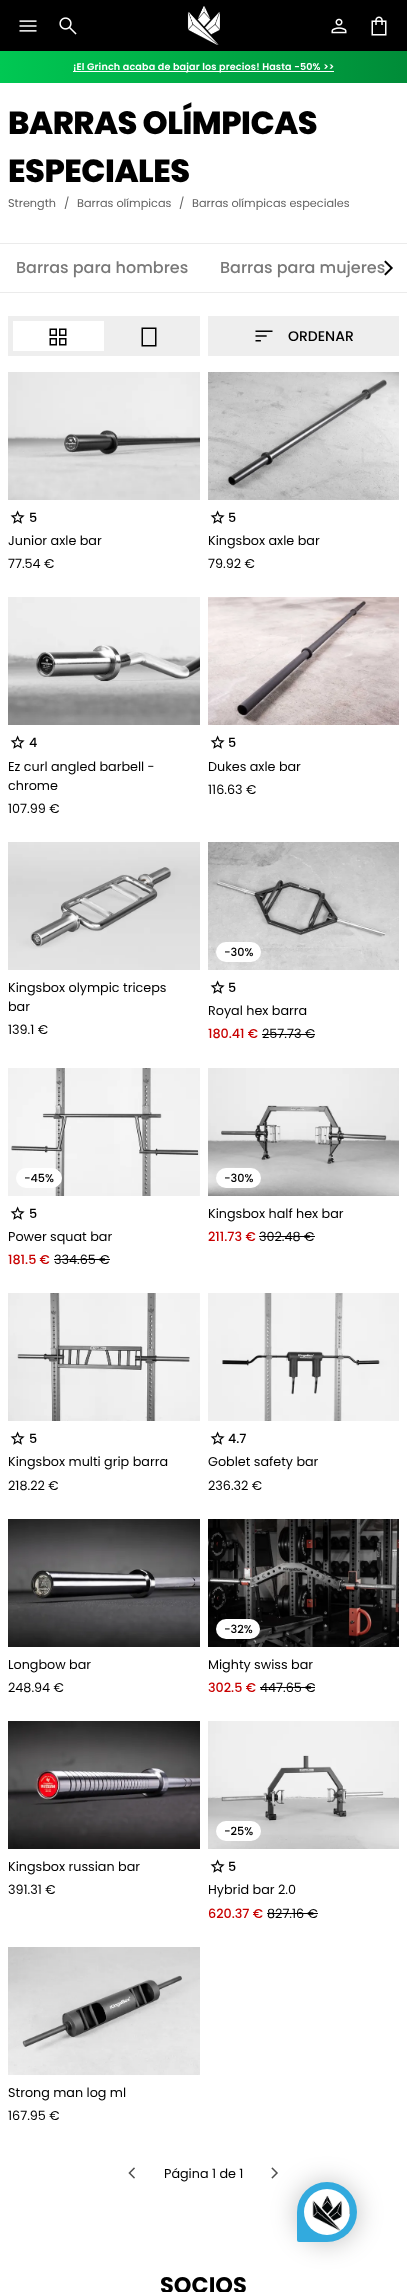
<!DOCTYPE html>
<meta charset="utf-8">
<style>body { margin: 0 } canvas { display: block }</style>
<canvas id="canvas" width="407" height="2292"></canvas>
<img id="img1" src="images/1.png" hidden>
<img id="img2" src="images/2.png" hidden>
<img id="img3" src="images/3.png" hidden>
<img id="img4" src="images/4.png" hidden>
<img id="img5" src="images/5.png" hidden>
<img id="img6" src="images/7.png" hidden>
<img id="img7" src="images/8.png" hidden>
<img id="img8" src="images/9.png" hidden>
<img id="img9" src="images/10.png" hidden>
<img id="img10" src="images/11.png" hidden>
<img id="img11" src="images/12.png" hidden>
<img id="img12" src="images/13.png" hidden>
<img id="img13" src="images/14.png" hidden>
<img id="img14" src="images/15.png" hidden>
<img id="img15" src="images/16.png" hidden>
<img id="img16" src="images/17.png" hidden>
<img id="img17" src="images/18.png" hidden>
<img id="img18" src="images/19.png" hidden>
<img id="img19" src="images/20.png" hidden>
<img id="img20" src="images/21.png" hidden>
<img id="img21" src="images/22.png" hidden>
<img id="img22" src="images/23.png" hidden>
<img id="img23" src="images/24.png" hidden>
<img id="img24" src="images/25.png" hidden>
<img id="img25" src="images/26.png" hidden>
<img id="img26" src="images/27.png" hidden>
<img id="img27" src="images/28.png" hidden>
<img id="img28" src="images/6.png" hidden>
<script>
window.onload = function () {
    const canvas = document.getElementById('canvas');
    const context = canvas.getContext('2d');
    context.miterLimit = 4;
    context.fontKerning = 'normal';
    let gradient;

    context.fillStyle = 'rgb(255, 255, 255)';
    context.fillRect(0, 0, 407, 2292);
    context.fillStyle = 'rgb(0, 0, 0)';
    context.fillRect(0, 0, 407, 51);
    context.drawImage(document.getElementById('img1'), 19, 20, 18, 12);
    context.drawImage(document.getElementById('img2'), 59, 17, 18, 18);
    context.drawImage(document.getElementById('img3'), 187, 6, 33, 39);
    context.drawImage(document.getElementById('img4'), 331, 18, 16, 16);
    context.drawImage(document.getElementById('img5'), 371, 16, 16, 20);
    gradient = context.createLinearGradient(0, 67, 407, 67);
    gradient.addColorStop(0, 'rgb(0, 200, 83)');
    gradient.addColorStop(1, 'rgb(0, 140, 56)');
    context.fillStyle = gradient;
    context.fillRect(0, 51, 407, 32);
    context.fillStyle = 'rgb(255, 255, 255)';
    context.fillRect(73, 71, 261, 1);
    context.strokeStyle = 'rgb(235, 235, 235)';
    context.strokeRect(-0.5, 243.5, 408, 49);
    context.fillStyle = 'rgb(238, 238, 238)';
    context.fillRect(8, 316, 192, 40);
    context.fillStyle = 'rgb(255, 255, 255)';
    context.fillRect(13, 321, 91, 30);
    context.drawImage(document.getElementById('img6'), 49, 328, 18, 18);
    context.drawImage(document.getElementById('img7'), 141, 327, 16, 20);
    context.fillStyle = 'rgb(238, 238, 238)';
    context.fillRect(208, 316, 191, 40);
    context.drawImage(document.getElementById('img8'), 255, 330, 18, 12);
    context.drawImage(document.getElementById('img9'), 8, 372, 192, 128);
    context.drawImage(document.getElementById('img10'), 10, 510, 15, 14);
    context.drawImage(document.getElementById('img11'), 208, 372, 191, 128);
    context.drawImage(document.getElementById('img10'), 210, 510, 15, 14);
    context.drawImage(document.getElementById('img12'), 8, 597, 192, 128);
    context.drawImage(document.getElementById('img10'), 10, 735, 15, 14);
    context.drawImage(document.getElementById('img13'), 208, 597, 191, 128);
    context.drawImage(document.getElementById('img10'), 210, 735, 15, 14);
    context.drawImage(document.getElementById('img14'), 8, 842, 192, 128);
    context.drawImage(document.getElementById('img15'), 208, 842, 191, 128);
    context.fillStyle = 'rgb(255, 255, 255)';
    context.beginPath();
    context.roundRect(216, 942, 45, 20, 10);
    context.fill();
    context.drawImage(document.getElementById('img10'), 210, 980, 15, 14);
    context.fillStyle = 'rgb(0, 0, 0)';
    context.fillRect(262, 1034, 53, 1);
    context.drawImage(document.getElementById('img16'), 8, 1068, 192, 128);
    context.fillStyle = 'rgb(255, 255, 255)';
    context.beginPath();
    context.roundRect(16, 1168, 46, 20, 10);
    context.fill();
    context.drawImage(document.getElementById('img10'), 10, 1206, 15, 14);
    context.fillStyle = 'rgb(0, 0, 0)';
    context.fillRect(54, 1259, 56, 1);
    context.drawImage(document.getElementById('img17'), 208, 1068, 191, 128);
    context.fillStyle = 'rgb(255, 255, 255)';
    context.beginPath();
    context.roundRect(216, 1168, 45, 20, 10);
    context.fill();
    context.fillStyle = 'rgb(0, 0, 0)';
    context.fillRect(259, 1236, 56, 1);
    context.drawImage(document.getElementById('img18'), 8, 1293, 192, 128);
    context.drawImage(document.getElementById('img10'), 10, 1431, 15, 14);
    context.drawImage(document.getElementById('img19'), 208, 1293, 191, 128);
    context.drawImage(document.getElementById('img10'), 210, 1431, 15, 14);
    context.drawImage(document.getElementById('img20'), 8, 1519, 192, 128);
    context.drawImage(document.getElementById('img21'), 208, 1519, 191, 128);
    context.fillStyle = 'rgb(255, 255, 255)';
    context.beginPath();
    context.roundRect(216, 1619, 44, 20, 10);
    context.fill();
    context.fillStyle = 'rgb(0, 0, 0)';
    context.fillRect(260, 1687, 55, 1);
    context.drawImage(document.getElementById('img22'), 8, 1721, 192, 128);
    context.drawImage(document.getElementById('img23'), 208, 1721, 191, 128);
    context.fillStyle = 'rgb(255, 255, 255)';
    context.beginPath();
    context.roundRect(216, 1821, 45, 20, 10);
    context.fill();
    context.drawImage(document.getElementById('img10'), 210, 1859, 15, 14);
    context.fillStyle = 'rgb(0, 0, 0)';
    context.fillRect(267, 1913, 51, 1);
    context.drawImage(document.getElementById('img24'), 8, 1947, 192, 128);
    context.drawImage(document.getElementById('img25'), 128, 2167, 7, 12);
    context.drawImage(document.getElementById('img26'), 271, 2167, 7, 12);
    context.fillStyle = 'rgba(0, 0, 0, 0.25)';
    context.filter = 'blur(13.5px)';
    context.beginPath();
    context.roundRect(297, 2183, 60, 60, 30);
    context.fill();
    context.filter = 'none';
    context.fillStyle = 'rgb(50, 170, 222)';
    context.beginPath();
    context.roundRect(297, 2182, 60, 60, [30, 30, 30, 2]);
    context.fill();
    context.drawImage(document.getElementById('img27'), 304, 2189, 46, 46);
    context.letterSpacing = '0.15px';
    context.font = '600 9.6px Poppins';
    context.fillStyle = 'rgb(255, 255, 255)';
    context.fillText('¡El Grinch acaba de bajar los precios! Hasta -50% >>', 73, 70);
    context.letterSpacing = '-0.5px';
    context.font = '800 32px Poppins';
    context.fillStyle = 'rgb(0, 0, 0)';
    context.fillText('BARRAS OLÍMPICAS', 8, 134);
    context.fillText('ESPECIALES', 8, 182);
    context.letterSpacing = '0px';
    context.font = '11.25px Poppins';
    context.fillStyle = 'rgb(97, 97, 97)';
    context.fillText('Strength', 8, 207);
    context.fillText('/', 64, 207);
    context.fillText('Barras olímpicas', 77, 207);
    context.fillText('/', 179, 207);
    context.fillText('Barras olímpicas especiales', 192, 207);
    context.font = '500 16px Poppins';
    context.fillStyle = 'rgb(121, 121, 121)';
    context.fillText('Barras para hombres', 16, 273);
    context.fillText('Barras para mujeres', 220, 273);
    context.drawImage(document.getElementById('img28'), 384, 260, 9, 16);
    context.font = '500 14px Poppins';
    context.fillStyle = 'rgb(0, 0, 0)';
    context.fillText('ORDENAR', 288, 341);
    context.font = '500 12.75px Poppins';
    context.fillText('5', 29, 522);
    context.font = '12.75px Poppins';
    context.fillText('Junior axle bar', 8, 545);
    context.fillText('77.54 €', 8, 568);
    context.font = '500 12.75px Poppins';
    context.fillText('5', 228, 522);
    context.font = '12.75px Poppins';
    context.fillText('Kingsbox axle bar', 208, 545);
    context.fillText('79.92 €', 208, 568);
    context.font = '500 12.75px Poppins';
    context.fillText('4', 29, 747);
    context.font = '12.75px Poppins';
    context.fillText('Ez curl angled barbell -', 8, 771);
    context.fillText('chrome', 8, 790);
    context.fillText('107.99 €', 8, 813);
    context.font = '500 12.75px Poppins';
    context.fillText('5', 228, 747);
    context.font = '12.75px Poppins';
    context.fillText('Dukes axle bar', 208, 771);
    context.fillText('116.63 €', 208, 794);
    context.fillText('Kingsbox olympic triceps', 8, 992);
    context.fillText('bar', 8, 1011);
    context.fillText('139.1 €', 8, 1034);
    context.font = '500 11.25px Poppins';
    context.fillText('-30%', 224, 956);
    context.font = '500 12.75px Poppins';
    context.fillText('5', 228, 992);
    context.font = '12.75px Poppins';
    context.fillText('Royal hex barra', 208, 1015);
    context.font = '500 12.75px Poppins';
    context.fillStyle = 'rgb(200, 0, 0)';
    context.fillText('180.41 €', 208, 1038);
    context.font = '12.75px Poppins';
    context.fillStyle = 'rgb(0, 0, 0)';
    context.fillText('257.73 €', 262, 1038);
    context.font = '500 11.25px Poppins';
    context.fillText('-45%', 24, 1182);
    context.font = '500 12.75px Poppins';
    context.fillText('5', 29, 1218);
    context.font = '12.75px Poppins';
    context.fillText('Power squat bar', 8, 1241);
    context.font = '500 12.75px Poppins';
    context.fillStyle = 'rgb(200, 0, 0)';
    context.fillText('181.5 €', 8, 1264);
    context.font = '12.75px Poppins';
    context.fillStyle = 'rgb(0, 0, 0)';
    context.fillText('334.65 €', 54, 1264);
    context.font = '500 11.25px Poppins';
    context.fillText('-30%', 224, 1182);
    context.font = '12.75px Poppins';
    context.fillText('Kingsbox half hex bar', 208, 1218);
    context.font = '500 12.75px Poppins';
    context.fillStyle = 'rgb(200, 0, 0)';
    context.fillText('211.73 €', 208, 1241);
    context.font = '12.75px Poppins';
    context.fillStyle = 'rgb(0, 0, 0)';
    context.fillText('302.48 €', 259, 1241);
    context.font = '500 12.75px Poppins';
    context.fillText('5', 29, 1443);
    context.font = '12.75px Poppins';
    context.fillText('Kingsbox multi grip barra', 8, 1466);
    context.fillText('218.22 €', 8, 1490);
    context.font = '500 12.75px Poppins';
    context.fillText('4.7', 228, 1443);
    context.font = '12.75px Poppins';
    context.fillText('Goblet safety bar', 208, 1466);
    context.fillText('236.32 €', 208, 1490);
    context.fillText('Longbow bar', 8, 1669);
    context.fillText('248.94 €', 8, 1692);
    context.font = '500 11.25px Poppins';
    context.fillText('-32%', 224, 1633);
    context.font = '12.75px Poppins';
    context.fillText('Mighty swiss bar', 208, 1669);
    context.font = '500 12.75px Poppins';
    context.fillStyle = 'rgb(200, 0, 0)';
    context.fillText('302.5 €', 208, 1692);
    context.font = '12.75px Poppins';
    context.fillStyle = 'rgb(0, 0, 0)';
    context.fillText('447.65 €', 260, 1692);
    context.fillText('Kingsbox russian bar', 8, 1871);
    context.fillText('391.31 €', 8, 1894);
    context.font = '500 11.25px Poppins';
    context.fillText('-25%', 224, 1835);
    context.font = '500 12.75px Poppins';
    context.fillText('5', 228, 1871);
    context.font = '12.75px Poppins';
    context.fillText('Hybrid bar 2.0', 208, 1894);
    context.font = '500 12.75px Poppins';
    context.fillStyle = 'rgb(200, 0, 0)';
    context.fillText('620.37 €', 208, 1918);
    context.font = '12.75px Poppins';
    context.fillStyle = 'rgb(0, 0, 0)';
    context.fillText('827.16 €', 267, 1918);
    context.fillText('Strong man log ml', 8, 2097);
    context.fillText('167.95 €', 8, 2120);
    context.fillText('Página 1 de 1', 164, 2178);
    context.font = 'bold 22.5px Poppins';
    context.fillText('SOCIOS', 160, 2293);
};
</script>
